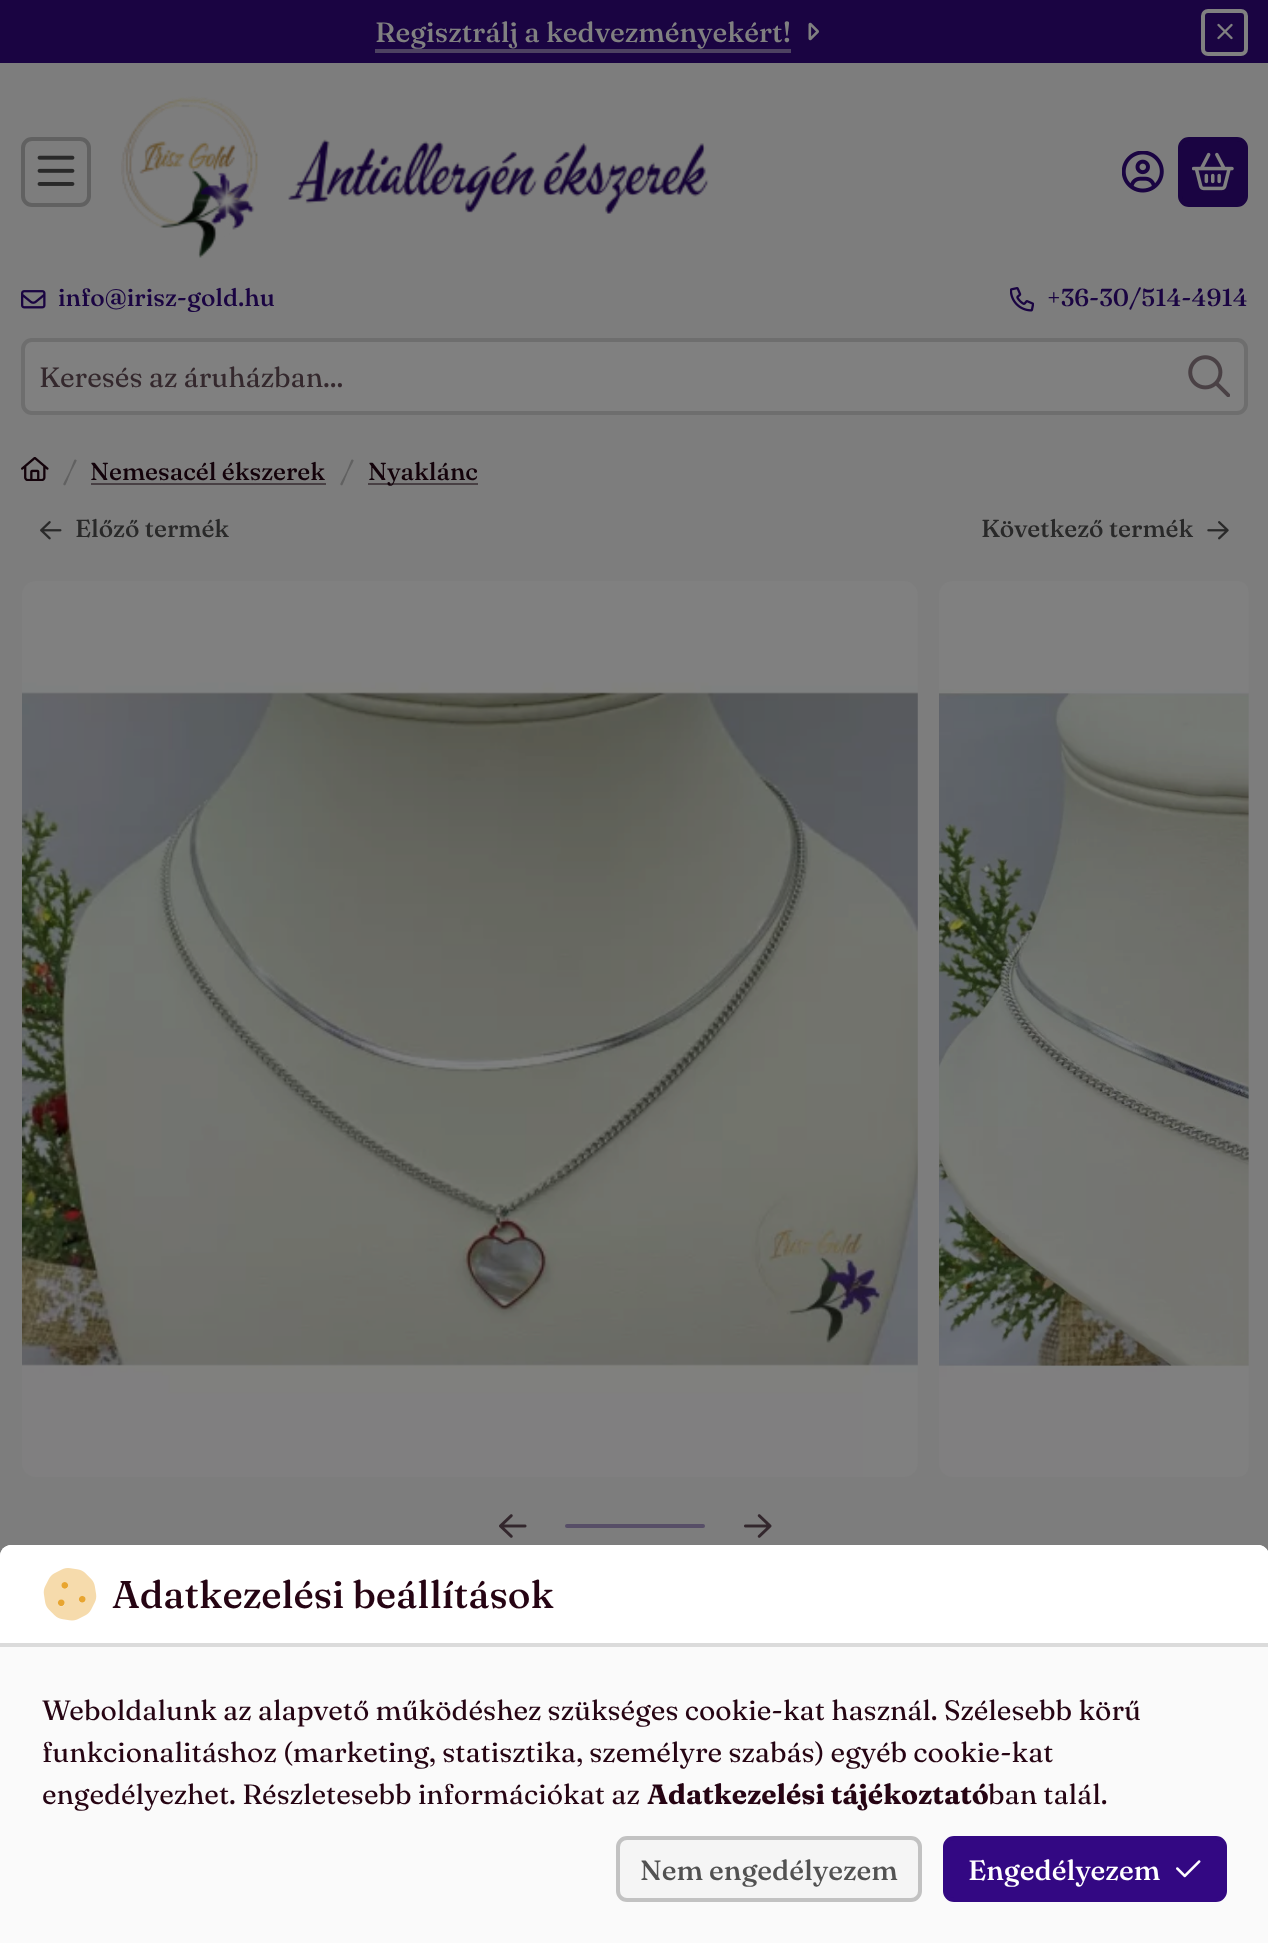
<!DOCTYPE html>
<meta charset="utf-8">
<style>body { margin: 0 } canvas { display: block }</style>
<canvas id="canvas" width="1268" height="1943"></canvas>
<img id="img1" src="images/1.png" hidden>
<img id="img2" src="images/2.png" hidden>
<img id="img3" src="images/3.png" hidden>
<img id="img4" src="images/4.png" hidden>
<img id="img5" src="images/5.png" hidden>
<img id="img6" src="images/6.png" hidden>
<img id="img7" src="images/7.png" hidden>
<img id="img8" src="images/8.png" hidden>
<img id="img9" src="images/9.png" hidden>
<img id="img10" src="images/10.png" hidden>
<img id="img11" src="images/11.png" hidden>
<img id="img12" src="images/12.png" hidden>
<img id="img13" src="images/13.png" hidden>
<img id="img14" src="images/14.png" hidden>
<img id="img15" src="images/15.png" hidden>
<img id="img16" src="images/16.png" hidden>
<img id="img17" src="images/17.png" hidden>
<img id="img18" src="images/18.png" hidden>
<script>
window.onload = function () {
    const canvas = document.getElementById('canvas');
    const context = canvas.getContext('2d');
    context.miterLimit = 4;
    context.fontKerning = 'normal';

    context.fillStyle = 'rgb(125, 125, 125)';
    context.fillRect(0, 0, 1268, 1943);
    context.fillStyle = 'rgb(26, 4, 66)';
    context.fillRect(0, 0, 1268, 63);
    context.fillStyle = 'rgb(77, 66, 97)';
    context.fillRect(375, 49, 416, 4);
    context.drawImage(document.getElementById('img1'), 808, 22, 11, 19);
    context.beginPath();
    context.roundRect(1203, 11, 43, 43, 5);
    context.strokeStyle = 'rgb(128, 128, 128)';
    context.lineWidth = 4;
    context.stroke();
    context.drawImage(document.getElementById('img2'), 1217, 23, 16, 17);
    context.beginPath();
    context.roundRect(23, 139, 66, 66, 9);
    context.strokeStyle = 'rgb(97, 97, 97)';
    context.stroke();
    context.drawImage(document.getElementById('img3'), 37, 155, 38, 31);
    context.drawImage(document.getElementById('img4'), 121, 96, 588, 162);
    context.drawImage(document.getElementById('img5'), 1122, 151, 42, 42);
    context.fillStyle = 'rgb(26, 4, 66)';
    context.beginPath();
    context.roundRect(1180, 139, 66, 66, 9);
    context.fill();
    context.strokeStyle = 'rgb(26, 4, 66)';
    context.stroke();
    context.drawImage(document.getElementById('img6'), 1192, 152, 42, 39);
    context.drawImage(document.getElementById('img7'), 21, 290, 25, 19);
    context.drawImage(document.getElementById('img8'), 1010, 287, 24, 25);
    context.fillStyle = 'rgb(128, 128, 128)';
    context.beginPath();
    context.roundRect(23, 340, 1223, 73, 9);
    context.fill();
    context.strokeStyle = 'rgb(110, 110, 110)';
    context.stroke();
    context.drawImage(document.getElementById('img9'), 1188, 355, 42, 42);
    context.drawImage(document.getElementById('img10'), 21, 457, 28, 24);
    context.fillStyle = 'rgb(72, 64, 68)';
    context.fillRect(91, 483, 235, 2);
    context.fillRect(368, 483, 110, 2);
    context.drawImage(document.getElementById('img11'), 40, 521, 22, 19);
    context.drawImage(document.getElementById('img12'), 1207, 521, 22, 19);
    context.drawImage(document.getElementById('img13'), 22, 581, 896, 896);
    context.drawImage(document.getElementById('img14'), 939, 581, 310, 896);
    context.drawImage(document.getElementById('img15'), 499, 1514, 28, 24);
    context.fillStyle = 'rgb(87, 78, 103)';
    context.beginPath();
    context.roundRect(565, 1524, 140, 4, 2);
    context.fill();
    context.drawImage(document.getElementById('img16'), 744, 1514, 28, 24);
    context.fillStyle = 'rgb(250, 250, 250)';
    context.beginPath();
    context.moveTo(11, 1545);
    context.lineTo(1258, 1545);
    context.bezierCurveTo(1264, 1545, 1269, 1550, 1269, 1556);
    context.lineTo(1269, 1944);
    context.lineTo(0, 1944);
    context.lineTo(0, 1556);
    context.bezierCurveTo(0, 1550, 5, 1545, 11, 1545);
    context.closePath();
    context.fill();
    context.fillStyle = 'rgb(255, 255, 255)';
    context.beginPath();
    context.moveTo(11, 1545);
    context.lineTo(1258, 1545);
    context.bezierCurveTo(1264, 1545, 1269, 1550, 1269, 1556);
    context.lineTo(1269, 1647);
    context.lineTo(0, 1647);
    context.lineTo(0, 1556);
    context.bezierCurveTo(0, 1550, 5, 1545, 11, 1545);
    context.closePath();
    context.fill();
    context.fillStyle = 'rgb(219, 219, 219)';
    context.fillRect(0, 1643, 1268, 4);
    context.drawImage(document.getElementById('img17'), 43, 1568, 54, 53);
    context.fillStyle = 'rgb(245, 245, 245)';
    context.beginPath();
    context.roundRect(618, 1838, 302, 62, 9);
    context.fill();
    context.strokeStyle = 'rgb(194, 194, 194)';
    context.stroke();
    context.fillStyle = 'rgb(51, 8, 131)';
    context.beginPath();
    context.roundRect(945, 1838, 280, 62, 9);
    context.fill();
    context.strokeStyle = 'rgb(51, 8, 131)';
    context.stroke();
    context.drawImage(document.getElementById('img18'), 1176, 1860, 25, 18);
    context.font = '500 28px Fraunces';
    context.fillStyle = 'rgb(128, 128, 128)';
    context.fillText('Regisztrálj a kedvezményekért!', 375, 42);
    context.font = '500 24.5px Fraunces';
    context.fillStyle = 'rgb(26, 4, 66)';
    context.fillText('info@irisz-gold.hu', 58, 306);
    context.fillText('+36-30/514-4914', 1047, 306);
    context.font = '28px Fraunces';
    context.fillStyle = 'rgb(52, 40, 45)';
    context.fillText('Keresés az áruházban...', 39, 387);
    context.font = '500 28px Fraunces';
    context.fillStyle = 'rgb(97, 97, 97)';
    context.fillText('/', 63, 481);
    context.font = '500 24.5px Fraunces';
    context.fillStyle = 'rgb(19, 2, 10)';
    context.fillText('Nemesacél ékszerek', 90, 480);
    context.font = '500 28px Fraunces';
    context.fillStyle = 'rgb(97, 97, 97)';
    context.fillText('/', 340, 481);
    context.font = '500 24.5px Fraunces';
    context.fillStyle = 'rgb(19, 2, 10)';
    context.fillText('Nyaklánc', 368, 480);
    context.fillStyle = 'rgb(41, 41, 41)';
    context.fillText('Előző termék', 75, 537);
    context.fillText('Következő termék', 981, 537);
    context.font = '500 38.5px Fraunces';
    context.fillStyle = 'rgb(38, 4, 19)';
    context.fillText('Adatkezelési beállítások', 112, 1608);
    context.font = '28px Fraunces';
    context.fillText('Weboldalunk az alapvető működéshez szükséges cookie-kat használ. Szélesebb körű', 42, 1720);
    context.fillText('funkcionalitáshoz (marketing, statisztika, személyre szabás) egyéb cookie-kat', 42, 1762);
    context.fillText('engedélyezhet. Részletesebb információkat az', 42, 1804);
    context.font = 'bold 28px Fraunces';
    context.fillText('Adatkezelési tájékoztató', 647, 1804);
    context.font = '28px Fraunces';
    context.fillText('ban talál.', 988, 1804);
    context.font = '500 28px Fraunces';
    context.fillStyle = 'rgb(82, 82, 82)';
    context.fillText('Nem engedélyezem', 640, 1880);
    context.fillStyle = 'rgb(255, 255, 255)';
    context.fillText('Engedélyezem', 968, 1880);
};
</script>
